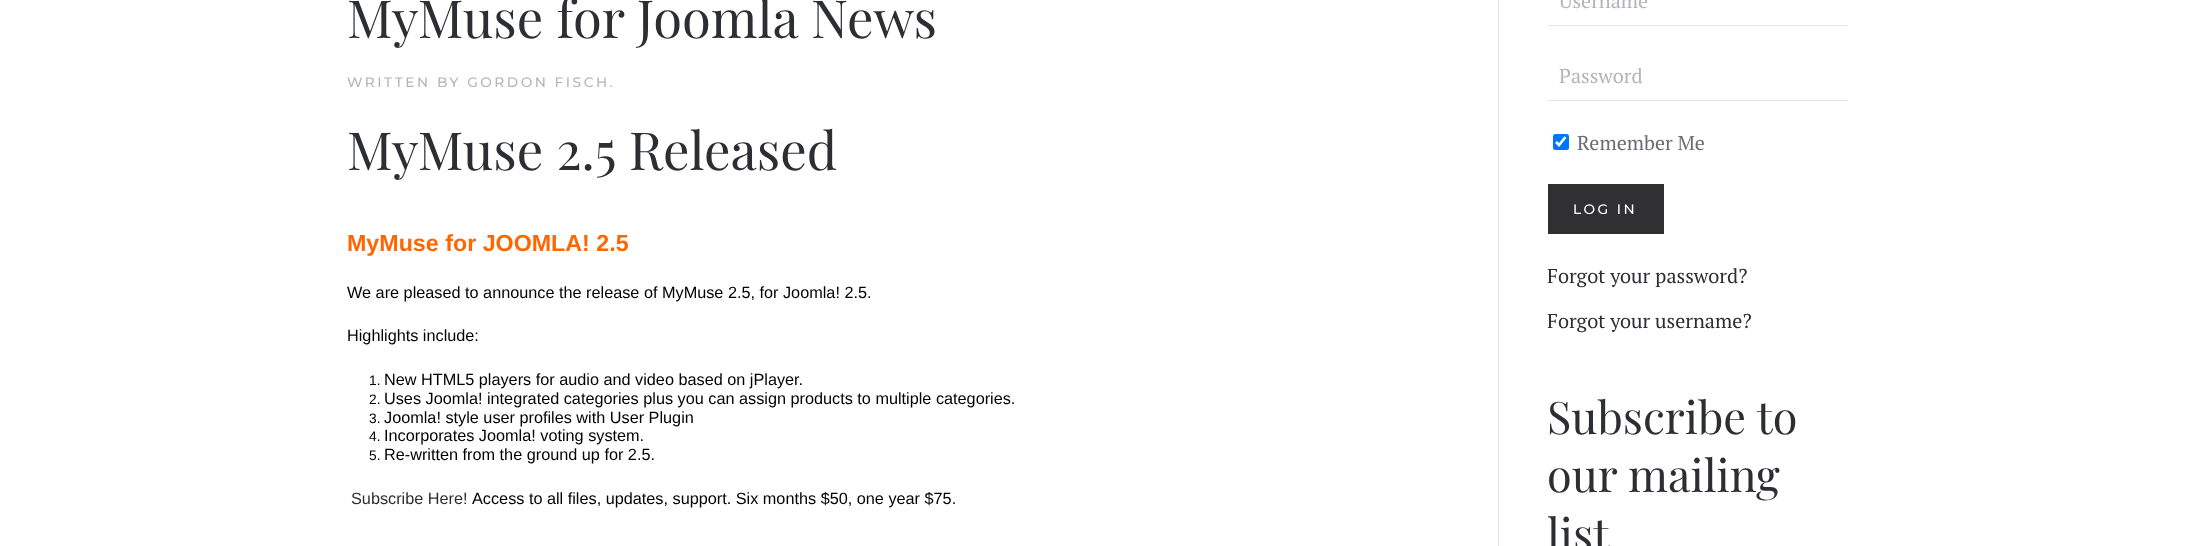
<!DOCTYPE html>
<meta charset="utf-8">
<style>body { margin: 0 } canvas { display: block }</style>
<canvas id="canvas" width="2193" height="546"></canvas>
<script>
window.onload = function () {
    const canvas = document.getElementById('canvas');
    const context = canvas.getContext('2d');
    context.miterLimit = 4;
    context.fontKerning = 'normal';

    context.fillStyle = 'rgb(255, 255, 255)';
    context.fillRect(0, 0, 2193, 546);
    context.fillStyle = 'rgb(229, 229, 231)';
    context.fillRect(1498, 0, 1, 546);
    context.fillRect(1548, 25, 300, 1);
    context.fillRect(1548, 100, 300, 1);
    context.fillStyle = 'rgb(0, 117, 255)';
    context.beginPath();
    context.roundRect(1553, 134, 16, 16, 2.5);
    context.fill();
    context.beginPath();
    context.moveTo(1556, 142);
    context.lineTo(1559, 145);
    context.lineTo(1565.5, 137);
    context.strokeStyle = 'rgb(255, 255, 255)';
    context.lineWidth = 2.6;
    context.stroke();
    context.fillStyle = 'rgb(48, 48, 51)';
    context.fillRect(1548, 184, 116, 50);
    context.font = '52.5px Playfair Display';
    context.fillStyle = 'rgb(45, 46, 51)';
    context.fillText('MyMuse for Joomla News', 347, 38);
    context.letterSpacing = '2.5px';
    context.font = '100 13.75px Montserrat';
    context.fillStyle = 'rgb(180, 181, 186)';
    context.fillText('WRITTEN BY GORDON FISCH.', 347, 87);
    context.letterSpacing = '0px';
    context.font = '52.5px Playfair Display';
    context.fillStyle = 'rgb(45, 46, 51)';
    context.fillText('MyMuse 2.5 Released', 347, 170);
    context.font = 'bold 23.25px Liberation Sans';
    context.fillStyle = 'rgb(255, 102, 0)';
    context.fillText('MyMuse for JOOMLA! 2.5', 347, 251);
    context.font = '16.25px Liberation Sans';
    context.fillStyle = 'rgb(0, 0, 0)';
    context.fillText('We are pleased to announce the release of MyMuse 2.5, for Joomla! 2.5.', 347, 298);
    context.fillText('Highlights include:', 347, 341);
    context.font = '13.75px Liberation Sans';
    context.fillText('1.', 369, 385);
    context.font = '16.25px Liberation Sans';
    context.fillText('New HTML5 players for audio and video based on jPlayer.', 384, 385);
    context.font = '13.75px Liberation Sans';
    context.fillText('2.', 369, 404);
    context.font = '16.25px Liberation Sans';
    context.fillText('Uses Joomla! integrated categories plus you can assign products to multiple categories.', 384, 404);
    context.font = '13.75px Liberation Sans';
    context.fillText('3.', 369, 423);
    context.font = '16.25px Liberation Sans';
    context.fillText('Joomla! style user profiles with User Plugin', 384, 423);
    context.font = '13.75px Liberation Sans';
    context.fillText('4.', 369, 441);
    context.font = '16.25px Liberation Sans';
    context.fillText('Incorporates Joomla! voting system.', 384, 441);
    context.font = '13.75px Liberation Sans';
    context.fillText('5.', 369, 460);
    context.font = '16.25px Liberation Sans';
    context.fillText('Re-written from the ground up for 2.5.', 384, 460);
    context.fillStyle = 'rgb(45, 46, 51)';
    context.fillText('Subscribe Here!', 351, 504);
    context.fillStyle = 'rgb(0, 0, 0)';
    context.fillText('Access to all files, updates, support. Six months $50, one year $75.', 472, 504);
    context.font = '20px PT Serif';
    context.fillStyle = 'rgb(180, 181, 186)';
    context.fillText('Username', 1559, 8);
    context.fillText('Password', 1559, 83);
    context.fillStyle = 'rgb(108, 109, 116)';
    context.fillText('Remember Me', 1577, 150);
    context.letterSpacing = '2.5px';
    context.font = '100 13.75px Montserrat';
    context.fillStyle = 'rgb(255, 255, 255)';
    context.fillText('LOG IN', 1573, 214);
    context.letterSpacing = '0px';
    context.font = '20px PT Serif';
    context.fillStyle = 'rgb(45, 46, 51)';
    context.fillText('Forgot your password?', 1547, 283);
    context.fillText('Forgot your username?', 1547, 328);
    context.font = '45px Playfair Display';
    context.fillText('Subscribe to', 1547, 434);
    context.fillText('our mailing', 1547, 492);
    context.fillText('list', 1547, 551);
};
</script>
